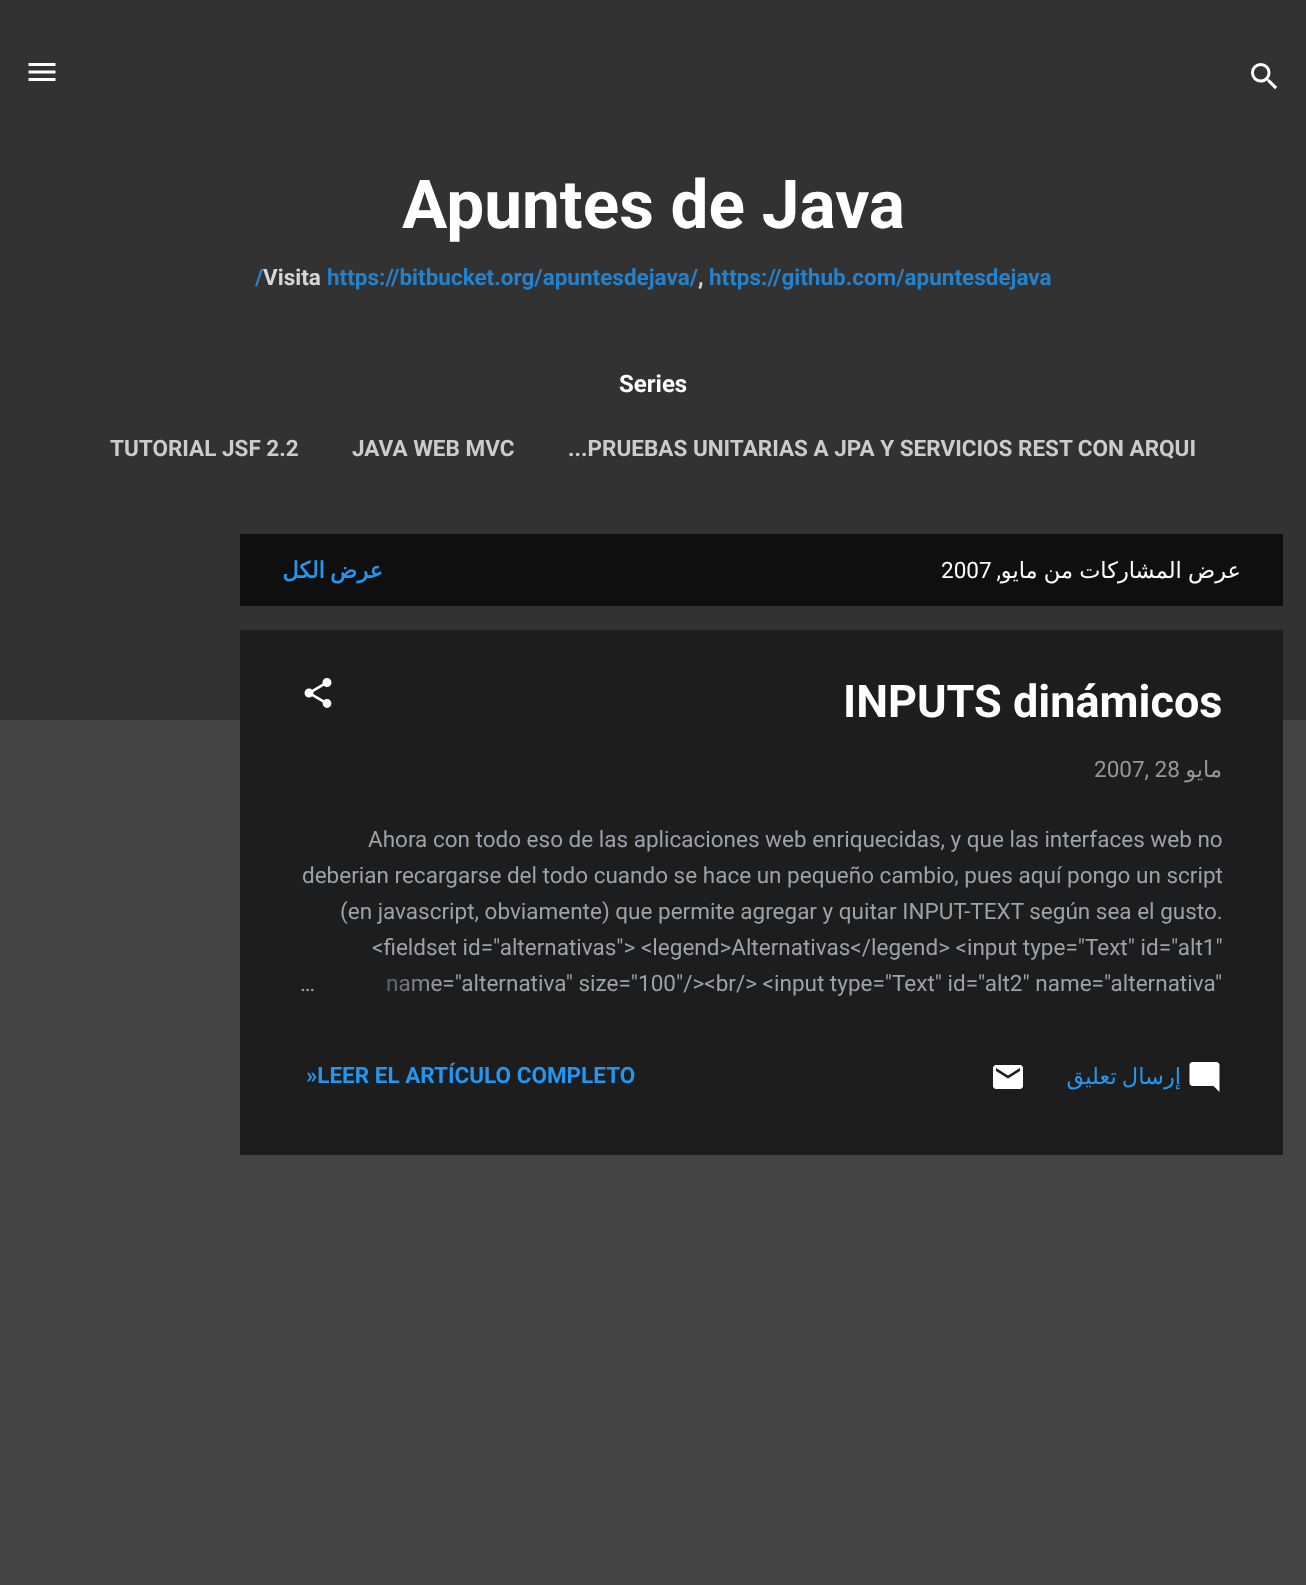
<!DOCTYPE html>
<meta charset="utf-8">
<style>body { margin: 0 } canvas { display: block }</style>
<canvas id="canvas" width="1306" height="1585"></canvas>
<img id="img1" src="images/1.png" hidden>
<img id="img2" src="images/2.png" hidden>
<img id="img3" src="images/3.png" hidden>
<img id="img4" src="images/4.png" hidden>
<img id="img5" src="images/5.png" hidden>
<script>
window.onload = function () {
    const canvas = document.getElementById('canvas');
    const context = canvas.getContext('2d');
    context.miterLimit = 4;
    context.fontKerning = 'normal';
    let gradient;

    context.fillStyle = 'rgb(68, 68, 68)';
    context.fillRect(0, 0, 1306, 1585);
    context.fillStyle = 'rgb(50, 50, 50)';
    context.fillRect(0, 0, 1306, 720);
    context.drawImage(document.getElementById('img1'), 28, 63, 28, 18);
    context.drawImage(document.getElementById('img2'), 1251, 63, 26, 27);
    context.fillStyle = 'rgb(15, 15, 15)';
    context.fillRect(240, 534, 1043, 72);
    context.fillStyle = 'rgb(29, 29, 29)';
    context.fillRect(240, 630, 1043, 525);
    context.drawImage(document.getElementById('img3'), 304, 678, 28, 30);
    context.drawImage(document.getElementById('img4'), 993, 1065, 30, 24);
    context.drawImage(document.getElementById('img5'), 1189, 1062, 31, 30);
    context.font = 'bold 67.5px Roboto';
    context.fillStyle = 'rgb(255, 255, 255)';
    context.fillText('Apuntes de Java', 402, 228);
    context.font = 'bold 22.5px Roboto';
    context.fillStyle = 'rgb(36, 130, 204)';
    context.fillText('/', 255, 285);
    context.fillStyle = 'rgb(214, 214, 214)';
    context.fillText('Visita', 263, 285);
    context.fillStyle = 'rgb(36, 130, 204)';
    context.fillText('https://bitbucket.org/apuntesdejava/', 327, 285);
    context.fillStyle = 'rgb(214, 214, 214)';
    context.fillText(',', 698, 285);
    context.fillStyle = 'rgb(36, 130, 204)';
    context.fillText('https://github.com/apuntesdejava', 709, 285);
    context.font = 'bold 24px Roboto';
    context.fillStyle = 'rgb(255, 255, 255)';
    context.fillText('Series', 619, 392);
    context.font = 'bold 22.5px Roboto';
    context.fillStyle = 'rgb(204, 204, 204)';
    context.fillText('TUTORIAL JSF 2.2', 110, 456);
    context.fillText('JAVA WEB MVC', 352, 456);
    context.fillText('...PRUEBAS UNITARIAS A JPA Y SERVICIOS REST CON ARQUI', 568, 456);
    context.wordSpacing = '-2px';
    context.direction = 'rtl';
    context.font = 'bold 22.5px DejaVu Sans';
    context.fillStyle = 'rgb(33, 150, 243)';
    context.fillText('عرض الكل', 383, 578);
    context.wordSpacing = '0px';
    context.direction = 'ltr';
    context.font = '22.5px Roboto';
    context.fillStyle = 'rgb(255, 255, 255)';
    context.fillText('2007', 941, 578);
    context.direction = 'rtl';
    context.fillText(',', 1001, 578);
    context.wordSpacing = '-1px';
    context.font = '22.5px DejaVu Sans';
    context.fillText('عرض المشاركات من مايو', 1241, 578);
    context.wordSpacing = '0px';
    context.direction = 'ltr';
    context.font = 'bold 45px Roboto';
    context.fillText('INPUTS dinámicos', 843, 717);
    context.font = '22.5px Roboto';
    context.fillStyle = 'rgb(151, 151, 151)';
    context.fillText('2007, 28', 1094, 777);
    context.direction = 'rtl';
    context.font = '22.5px DejaVu Sans';
    context.fillText('مايو', 1222, 777);
    context.direction = 'ltr';
    context.font = '22.5px Roboto';
    context.fillStyle = 'rgb(155, 162, 168)';
    context.fillText('Ahora con todo eso de las aplicaciones web enriquecidas, y que las interfaces web no', 368, 847);
    context.fillText('deberian recargarse del todo cuando se hace un pequeño cambio, pues aquí pongo un script', 302, 883);
    context.fillText('(en javascript, obviamente) que permite agregar y quitar INPUT-TEXT según sea el gusto.', 340, 919);
    context.fillText('<fieldset id="alternativas"> <legend>Alternativas<\/legend> <input type="Text" id="alt1"', 372, 955);
    context.fillText('name="alternativa" size="100"/><br/> <input type="Text" id="alt2" name="alternativa"', 386, 991);
    gradient = context.createLinearGradient(300, 984, 444, 984);
    gradient.addColorStop(0, 'rgb(29, 29, 29)');
    gradient.addColorStop(0.2, 'rgb(29, 29, 29)');
    gradient.addColorStop(1, 'rgba(29, 29, 29, 0)');
    context.fillStyle = gradient;
    context.fillRect(387, 978, 54, 14);
    context.fillStyle = 'rgb(155, 162, 168)';
    context.fillText('…', 300, 991);
    context.font = 'bold 22.5px Roboto';
    context.fillStyle = 'rgb(33, 150, 243)';
    context.fillText('»LEER EL ARTÍCULO COMPLETO', 306, 1083);
    context.wordSpacing = '-2px';
    context.direction = 'rtl';
    context.font = '22.5px DejaVu Sans';
    context.fillText('إرسال تعليق', 1181, 1084);
};
</script>
